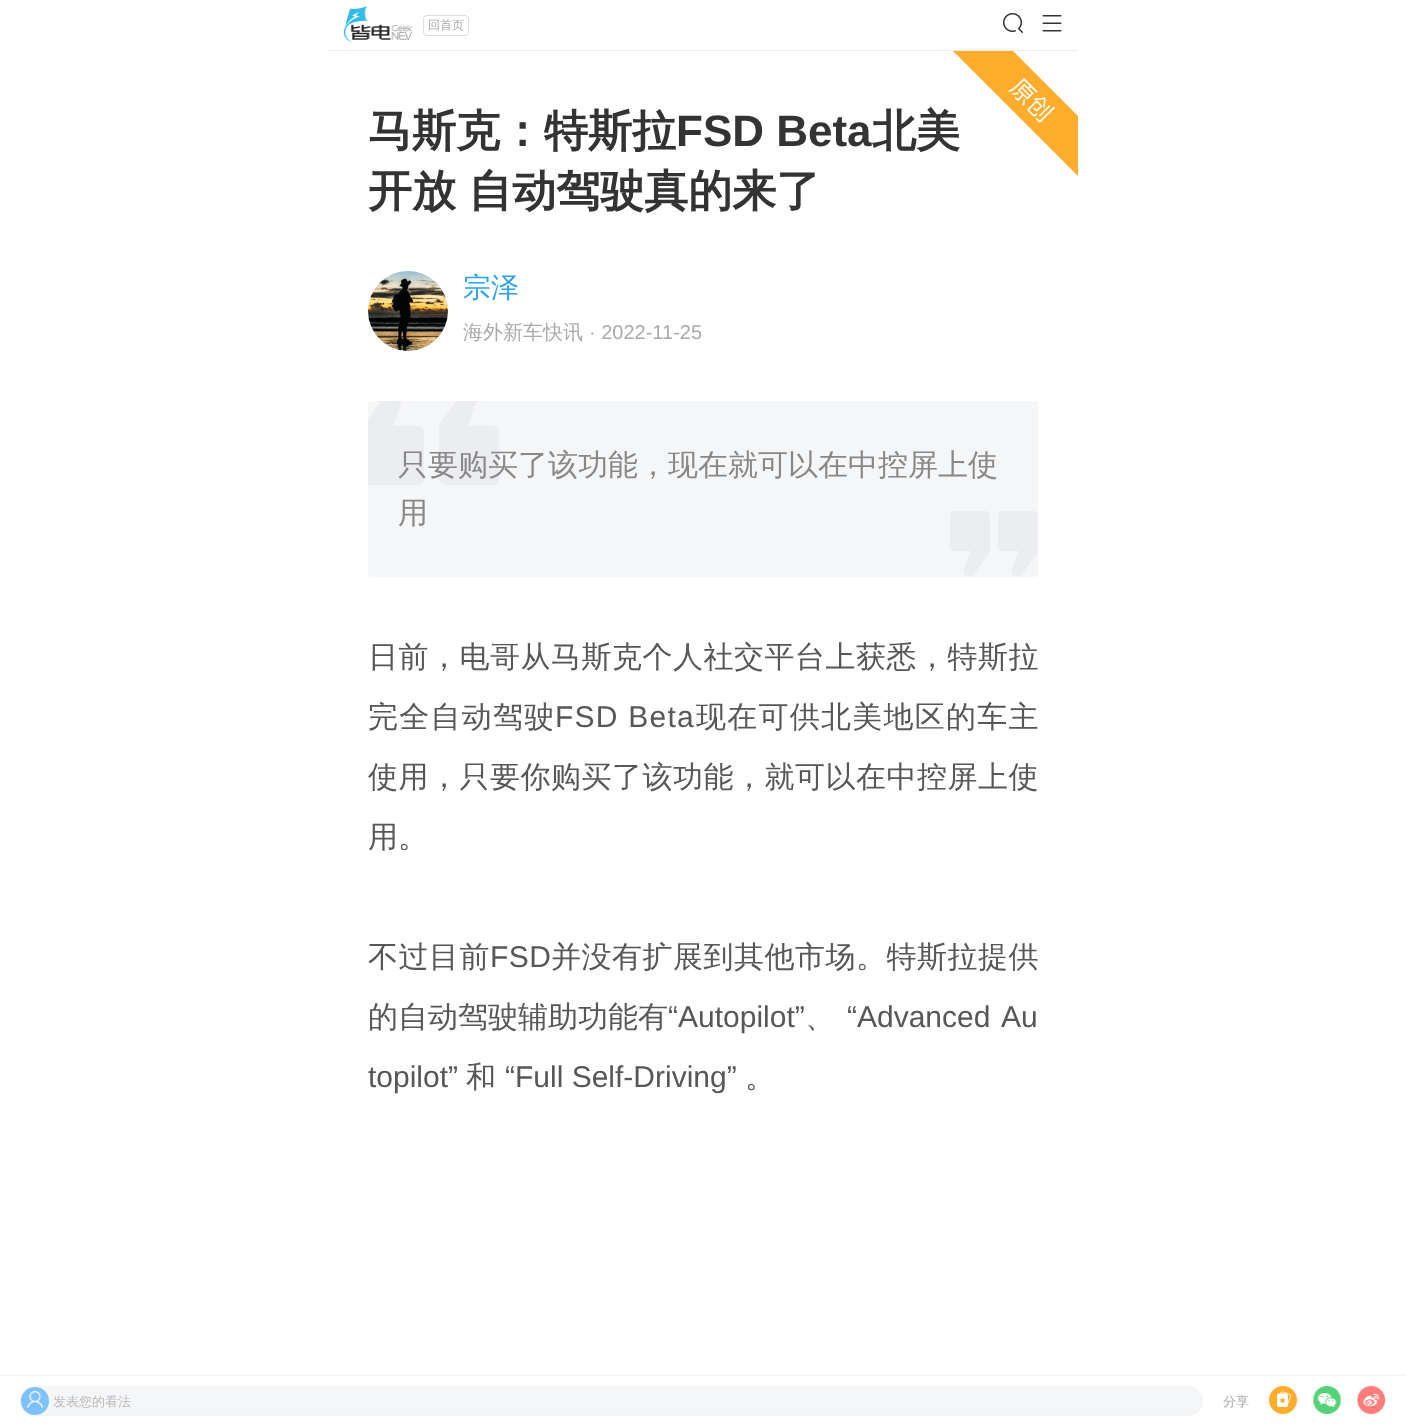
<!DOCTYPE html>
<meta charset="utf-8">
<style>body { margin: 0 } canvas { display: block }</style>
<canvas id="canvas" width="1406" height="1426"></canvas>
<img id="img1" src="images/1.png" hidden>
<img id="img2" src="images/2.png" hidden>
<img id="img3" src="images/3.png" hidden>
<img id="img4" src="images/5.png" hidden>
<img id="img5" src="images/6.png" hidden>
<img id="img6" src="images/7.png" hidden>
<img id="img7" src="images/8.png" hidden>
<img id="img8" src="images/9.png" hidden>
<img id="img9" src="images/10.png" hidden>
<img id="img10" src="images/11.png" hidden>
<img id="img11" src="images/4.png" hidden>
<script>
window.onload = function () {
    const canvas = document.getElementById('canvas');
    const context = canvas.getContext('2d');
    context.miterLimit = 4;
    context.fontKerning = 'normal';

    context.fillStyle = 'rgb(255, 255, 255)';
    context.fillRect(0, 0, 1406, 1426);
    context.fillStyle = 'rgb(236, 236, 236)';
    context.fillRect(328, 50, 750, 1);
    context.drawImage(document.getElementById('img1'), 344, 6, 68, 37);
    context.beginPath();
    context.roundRect(423.5, 15.5, 45, 20, 3.5);
    context.strokeStyle = 'rgb(221, 221, 221)';
    context.stroke();
    context.drawImage(document.getElementById('img2'), 1003, 13, 20, 20);
    context.drawImage(document.getElementById('img3'), 1042, 15, 20, 17);
    context.drawImage(document.getElementById('img4'), 368, 271, 80, 80);
    context.fillStyle = 'rgb(245, 246, 248)';
    context.beginPath();
    context.roundRect(368, 401, 670, 176, 4);
    context.fill();
    context.drawImage(document.getElementById('img5'), 368, 401, 131, 84);
    context.drawImage(document.getElementById('img6'), 950, 511, 88, 66);
    context.save();
    context.beginPath();
    context.rect(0, 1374, 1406, 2);
    context.clip();
    context.fillStyle = 'rgb(221, 221, 221)';
    context.filter = 'blur(1px)';
    context.beginPath();
    context.rect(0, 1376, 1406, 50);
    context.fill();
    context.filter = 'none';
    context.restore();
    context.beginPath();
    context.roundRect(20.5, 1386.5, 1182, 29, 14.5);
    context.fill();
    context.strokeStyle = 'rgb(243, 243, 243)';
    context.stroke();
    context.fillStyle = 'rgb(125, 194, 252)';
    context.beginPath();
    context.arc(35, 1401, 14, 0, 2 * Math.PI);
    context.fill();
    context.fillRect(25, 1391, 20, 20);
    context.drawImage(document.getElementById('img7'), 26, 1391, 18, 17);
    context.drawImage(document.getElementById('img8'), 1269, 1386, 28, 28);
    context.drawImage(document.getElementById('img9'), 1313, 1386, 28, 28);
    context.drawImage(document.getElementById('img10'), 1357, 1386, 28, 28);
    context.font = '500 12px WenQuanYi Zen Hei';
    context.fillStyle = 'rgb(170, 170, 170)';
    context.fillText('回首页', 428, 29);
    context.font = 'bold 44px WenQuanYi Zen Hei';
    context.fillStyle = 'rgb(51, 51, 51)';
    context.fillText('马斯克：特斯拉', 368, 146);
    context.font = 'bold 44px Liberation Sans';
    context.fillText('FSD Beta', 676, 146);
    context.font = 'bold 44px WenQuanYi Zen Hei';
    context.fillText('北美', 872, 146);
    context.wordSpacing = '-1px';
    context.fillText('开放 自动驾驶真的来了', 368, 206);
    context.drawImage(document.getElementById('img11'), 953, 51, 125, 125);
    context.wordSpacing = '0px';
    context.font = '500 28px WenQuanYi Zen Hei';
    context.fillStyle = 'rgb(44, 162, 237)';
    context.fillText('宗泽', 463, 297);
    context.font = '500 20px WenQuanYi Zen Hei';
    context.fillStyle = 'rgb(170, 170, 170)';
    context.fillText('海外新车快讯', 463, 339);
    context.font = '20px Liberation Sans';
    context.fillText('· 2022-11-25', 589, 339);
    context.font = '500 30px WenQuanYi Zen Hei';
    context.fillStyle = 'rgb(136, 136, 136)';
    context.fillText('只要购买了该功能，现在就可以在中控屏上使', 398, 475);
    context.fillText('用', 398, 523);
    context.letterSpacing = '0.5px';
    context.fillStyle = 'rgb(87, 87, 87)';
    context.fillText('日前，电哥从马斯克个人社交平台上获悉，特斯拉', 368, 667);
    context.letterSpacing = '1.25px';
    context.fillText('完全自动驾驶', 368, 727);
    context.font = '30px Liberation Sans';
    context.fillText('FSD Beta', 555, 727);
    context.font = '500 30px WenQuanYi Zen Hei';
    context.fillText('现在可供北美地区的车主', 696, 727);
    context.letterSpacing = '0.5px';
    context.fillText('使用，只要你购买了该功能，就可以在中控屏上使', 368, 787);
    context.letterSpacing = '0px';
    context.fillText('用。', 368, 847);
    context.letterSpacing = '0.5px';
    context.fillText('不过目前', 368, 967);
    context.font = '30px Liberation Sans';
    context.fillText('FSD', 490, 967);
    context.font = '500 30px WenQuanYi Zen Hei';
    context.fillText('并没有扩展到其他市场。特斯拉提供', 551, 967);
    context.letterSpacing = '0px';
    context.fillText('的自动驾驶辅助功能有', 368, 1027);
    context.font = '30px Liberation Sans';
    context.fillText('“Autopilot”', 668, 1027);
    context.font = '500 30px WenQuanYi Zen Hei';
    context.fillText('、', 805, 1027);
    context.wordSpacing = '4px';
    context.font = '30px Liberation Sans';
    context.fillText('“Advanced Au', 847, 1027);
    context.wordSpacing = '0px';
    context.fillText('topilot”', 368, 1087);
    context.font = '500 30px WenQuanYi Zen Hei';
    context.fillText('和', 466, 1087);
    context.font = '30px Liberation Sans';
    context.fillText('“Full Self-Driving”', 505, 1087);
    context.font = '500 30px WenQuanYi Zen Hei';
    context.fillText('。', 745, 1087);
    context.font = '500 13px WenQuanYi Zen Hei';
    context.fillStyle = 'rgb(187, 187, 187)';
    context.fillText('发表您的看法', 53, 1406);
    context.fillStyle = 'rgb(170, 170, 170)';
    context.fillText('分享', 1223, 1406);
};
</script>
